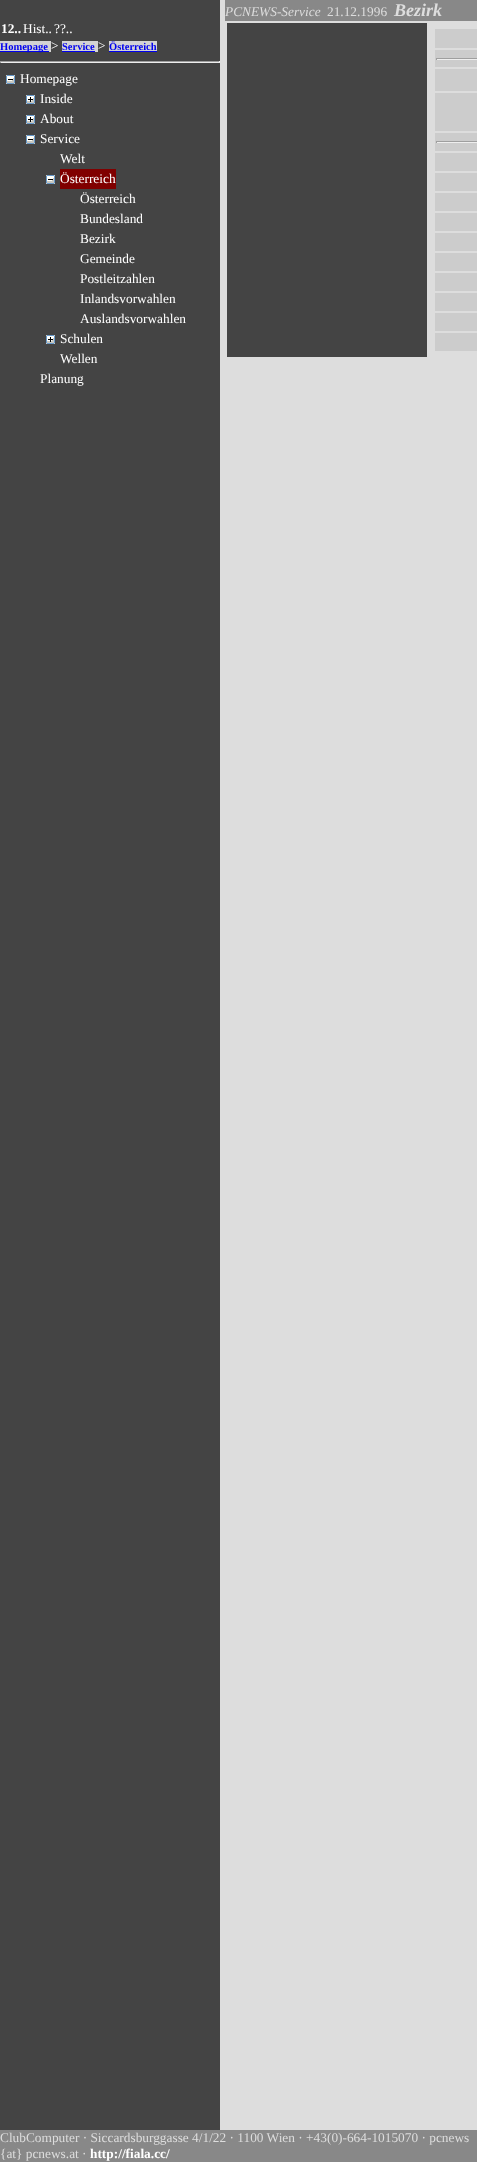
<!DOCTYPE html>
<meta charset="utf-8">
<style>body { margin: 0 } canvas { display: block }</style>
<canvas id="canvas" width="477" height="2162"></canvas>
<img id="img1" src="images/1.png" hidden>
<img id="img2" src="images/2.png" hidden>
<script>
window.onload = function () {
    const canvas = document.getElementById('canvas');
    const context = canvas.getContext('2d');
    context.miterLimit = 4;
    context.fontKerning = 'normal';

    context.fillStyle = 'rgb(221, 221, 221)';
    context.fillRect(0, 0, 477, 2162);
    context.fillStyle = 'rgb(136, 136, 136)';
    context.fillRect(225, 0, 252, 21);
    context.fillStyle = 'rgb(68, 68, 68)';
    context.fillRect(227, 23, 200, 334);
    context.fillStyle = 'rgb(204, 204, 204)';
    context.fillRect(435, 29, 42, 19);
    context.fillRect(435, 50, 42, 17);
    context.fillStyle = 'rgb(159, 159, 159)';
    context.fillRect(436, 58, 41, 1);
    context.fillStyle = 'rgb(238, 238, 238)';
    context.fillRect(436, 59, 41, 1);
    context.fillStyle = 'rgb(159, 159, 159)';
    context.fillRect(436, 58, 1, 2);
    context.fillStyle = 'rgb(204, 204, 204)';
    context.fillRect(435, 69, 42, 22);
    context.fillRect(435, 93, 42, 38);
    context.fillRect(435, 133, 42, 18);
    context.fillStyle = 'rgb(159, 159, 159)';
    context.fillRect(436, 141, 41, 1);
    context.fillStyle = 'rgb(238, 238, 238)';
    context.fillRect(436, 142, 41, 1);
    context.fillStyle = 'rgb(159, 159, 159)';
    context.fillRect(436, 141, 1, 2);
    context.fillStyle = 'rgb(204, 204, 204)';
    context.fillRect(435, 153, 42, 18);
    context.fillRect(435, 173, 42, 18);
    context.fillRect(435, 193, 42, 18);
    context.fillRect(435, 213, 42, 18);
    context.fillRect(435, 233, 42, 18);
    context.fillRect(435, 253, 42, 18);
    context.fillRect(435, 273, 42, 18);
    context.fillRect(435, 293, 42, 18);
    context.fillRect(435, 313, 42, 18);
    context.fillRect(435, 333, 42, 18);
    context.fillStyle = 'rgb(68, 68, 68)';
    context.fillRect(0, 0, 220, 2130);
    context.fillStyle = 'rgb(211, 211, 211)';
    context.fillRect(0, 41, 49, 10);
    context.fillRect(49, 41, 2, 11);
    context.fillStyle = 'rgb(0, 0, 238)';
    context.fillRect(0, 51, 49, 1);
    context.fillStyle = 'rgb(211, 211, 211)';
    context.fillRect(62, 41, 33, 10);
    context.fillRect(95, 41, 3, 11);
    context.fillStyle = 'rgb(0, 0, 238)';
    context.fillRect(62, 51, 33, 1);
    context.fillStyle = 'rgb(211, 211, 211)';
    context.fillRect(109, 41, 48, 10);
    context.fillStyle = 'rgb(0, 0, 238)';
    context.fillRect(109, 51, 48, 1);
    context.fillStyle = 'rgb(159, 159, 159)';
    context.fillRect(0, 61, 220, 1);
    context.fillStyle = 'rgb(238, 238, 238)';
    context.fillRect(219, 61, 1, 2);
    context.fillRect(0, 62, 220, 1);
    context.fillStyle = 'rgb(159, 159, 159)';
    context.fillRect(0, 61, 1, 2);
    context.drawImage(document.getElementById('img1'), 6, 75, 9, 9);
    context.drawImage(document.getElementById('img2'), 26, 95, 9, 9);
    context.drawImage(document.getElementById('img2'), 26, 115, 9, 9);
    context.drawImage(document.getElementById('img1'), 26, 135, 9, 9);
    context.drawImage(document.getElementById('img1'), 46, 175, 9, 9);
    context.fillStyle = 'rgb(128, 0, 0)';
    context.fillRect(60, 169, 56, 20);
    context.drawImage(document.getElementById('img2'), 46, 335, 9, 9);
    context.fillStyle = 'rgb(136, 136, 136)';
    context.fillRect(0, 2130, 477, 32);
    context.font = 'italic 13.35px Liberation Serif';
    context.fillStyle = 'rgb(221, 221, 221)';
    context.fillText('PCNEWS-Service', 225, 16);
    context.font = '13.35px Liberation Serif';
    context.fillText('21.12.1996', 327, 16);
    context.font = 'italic bold 18px Liberation Serif';
    context.fillText('Bezirk', 394, 16);
    context.font = 'bold 13.35px Liberation Serif';
    context.fillStyle = 'rgb(255, 255, 255)';
    context.fillText('12..', 1, 33);
    context.font = '13.35px Liberation Serif';
    context.fillText('Hist..', 23, 33);
    context.fillText('??..', 54, 33);
    context.font = 'bold 10.5px Liberation Serif';
    context.fillStyle = 'rgb(0, 0, 238)';
    context.fillText('Homepage', 0, 50);
    context.font = '13.35px Liberation Serif';
    context.fillStyle = 'rgb(255, 255, 255)';
    context.fillText('>', 51, 50);
    context.font = 'bold 10.5px Liberation Serif';
    context.fillStyle = 'rgb(0, 0, 238)';
    context.fillText('Service', 62, 50);
    context.font = '13.35px Liberation Serif';
    context.fillStyle = 'rgb(255, 255, 255)';
    context.fillText('>', 98, 50);
    context.font = 'bold 10.5px Liberation Serif';
    context.fillStyle = 'rgb(0, 0, 238)';
    context.fillText('Österreich', 109, 50);
    context.font = '13.35px Liberation Serif';
    context.fillStyle = 'rgb(255, 255, 255)';
    context.fillText('Homepage', 20, 83);
    context.fillText('Inside', 40, 103);
    context.fillText('About', 40, 123);
    context.fillText('Service', 40, 143);
    context.fillText('Welt', 60, 163);
    context.fillText('Österreich', 60, 183);
    context.fillText('Österreich', 80, 203);
    context.fillText('Bundesland', 80, 223);
    context.fillText('Bezirk', 80, 243);
    context.fillText('Gemeinde', 80, 263);
    context.fillText('Postleitzahlen', 80, 283);
    context.fillText('Inlandsvorwahlen', 80, 303);
    context.fillText('Auslandsvorwahlen', 80, 323);
    context.fillText('Schulen', 60, 343);
    context.fillText('Wellen', 60, 363);
    context.fillText('Planung', 40, 383);
    context.fillStyle = 'rgb(221, 221, 221)';
    context.fillText('ClubComputer · Siccardsburggasse 4/1/22 · 1100 Wien · +43(0)-664-1015070 · pcnews', 0, 2142);
    context.fillText('{at} pcnews.at ·', 0, 2158);
    context.font = 'bold 13.35px Liberation Serif';
    context.fillStyle = 'rgb(255, 255, 255)';
    context.fillText('http://fiala.cc/', 90, 2158);
};
</script>
